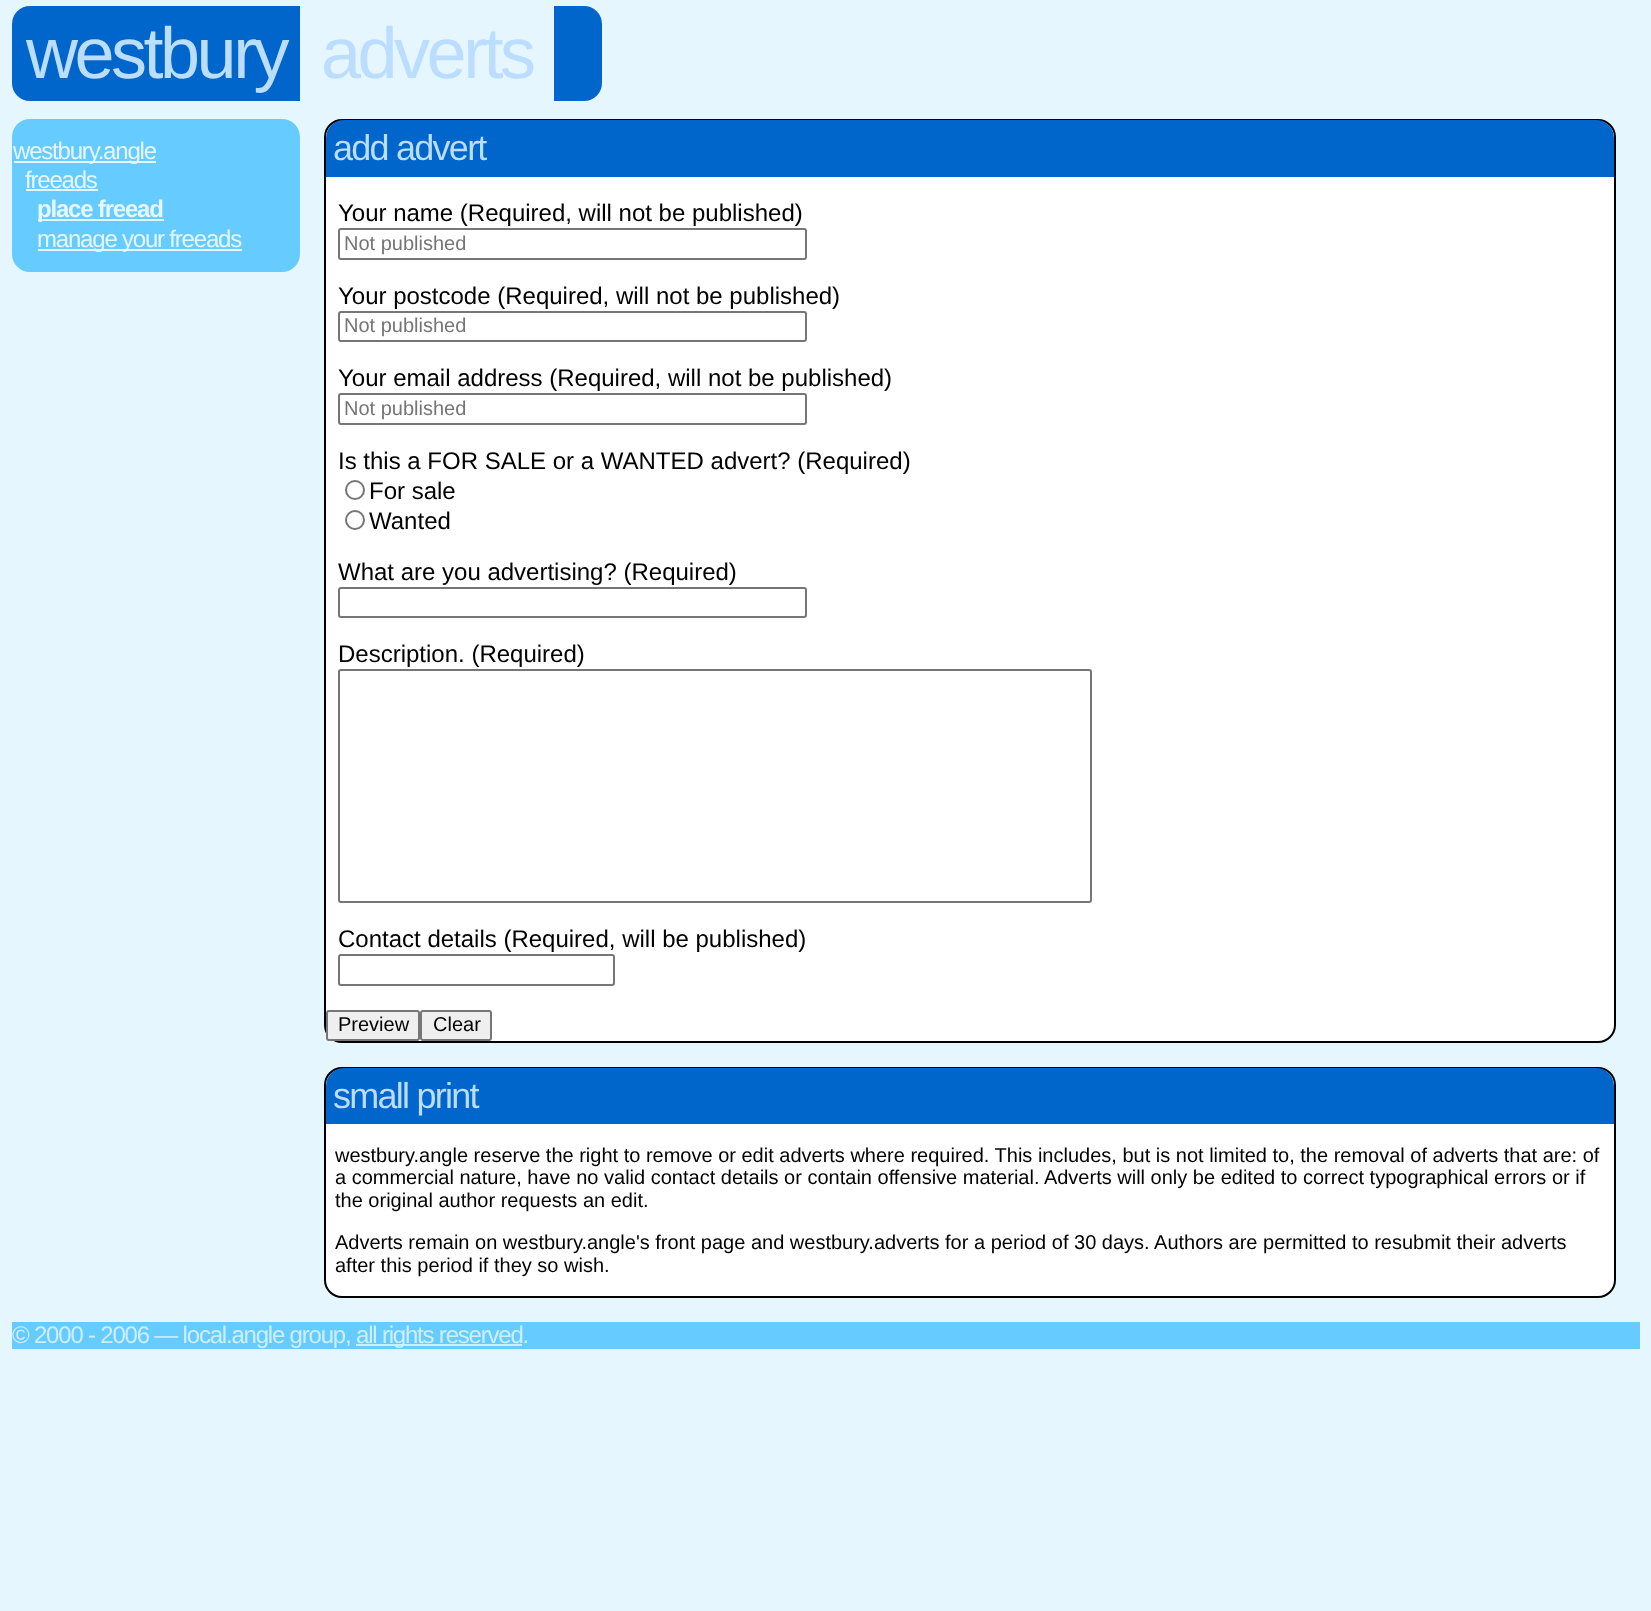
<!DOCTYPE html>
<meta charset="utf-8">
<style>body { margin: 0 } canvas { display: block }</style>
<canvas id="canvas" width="1651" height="1611"></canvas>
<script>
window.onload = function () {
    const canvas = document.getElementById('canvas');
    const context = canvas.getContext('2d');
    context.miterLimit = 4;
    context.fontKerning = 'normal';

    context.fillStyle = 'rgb(230, 246, 255)';
    context.fillRect(0, 0, 1651, 1611);
    context.fillStyle = 'rgb(0, 102, 204)';
    context.beginPath();
    context.roundRect(12, 6, 288, 95, [18, 0, 0, 18]);
    context.fill();
    context.beginPath();
    context.roundRect(554, 6, 48, 95, [0, 18, 18, 0]);
    context.fill();
    context.fillStyle = 'rgb(102, 204, 255)';
    context.beginPath();
    context.roundRect(12, 119, 288, 153, 18);
    context.fill();
    context.fillStyle = 'rgb(230, 246, 255)';
    context.fillRect(14, 161, 142, 2);
    context.fillRect(26, 189, 72, 2);
    context.fillRect(38, 219, 126, 2);
    context.fillRect(38, 249, 204, 2);
    context.fillStyle = 'rgb(255, 255, 255)';
    context.beginPath();
    context.roundRect(325, 120, 1290, 922, 17);
    context.fill();
    context.strokeStyle = 'rgb(0, 0, 0)';
    context.lineWidth = 2;
    context.stroke();
    context.fillStyle = 'rgb(0, 102, 204)';
    context.beginPath();
    context.roundRect(326, 120, 1288, 57, [18, 18, 0, 0]);
    context.fill();
    context.beginPath();
    context.roundRect(339, 229, 467, 30, 2);
    context.strokeStyle = 'rgb(118, 118, 118)';
    context.stroke();
    context.beginPath();
    context.roundRect(339, 312, 467, 29, 2);
    context.stroke();
    context.beginPath();
    context.roundRect(339, 394, 467, 30, 2);
    context.stroke();
    context.beginPath();
    context.arc(355, 490, 9, 0, 2 * Math.PI);
    context.stroke();
    context.beginPath();
    context.arc(355, 520, 9, 0, 2 * Math.PI);
    context.stroke();
    context.beginPath();
    context.roundRect(339, 588, 467, 29, 2);
    context.stroke();
    context.beginPath();
    context.roundRect(339, 670, 752, 232, 2);
    context.stroke();
    context.beginPath();
    context.roundRect(339, 955, 275, 30, 2);
    context.stroke();
    context.fillStyle = 'rgb(239, 239, 239)';
    context.beginPath();
    context.roundRect(327, 1011, 92, 29, 2);
    context.fill();
    context.stroke();
    context.beginPath();
    context.roundRect(421, 1011, 70, 29, 2);
    context.fill();
    context.stroke();
    context.fillStyle = 'rgb(255, 255, 255)';
    context.beginPath();
    context.roundRect(325, 1068, 1290, 229, 17);
    context.fill();
    context.strokeStyle = 'rgb(0, 0, 0)';
    context.stroke();
    context.fillStyle = 'rgb(0, 102, 204)';
    context.beginPath();
    context.roundRect(326, 1068, 1288, 56, [18, 18, 0, 0]);
    context.fill();
    context.fillStyle = 'rgb(102, 204, 255)';
    context.fillRect(12, 1322, 1628, 27);
    context.fillStyle = 'rgb(204, 238, 255)';
    context.fillRect(356, 1344, 166, 2);
    context.letterSpacing = '-3.5px';
    context.font = '72px Liberation Sans';
    context.fillStyle = 'rgb(187, 221, 255)';
    context.fillText('westbury', 26, 78);
    context.fillText('adverts', 321, 78);
    context.letterSpacing = '-1.2px';
    context.font = '24px Liberation Sans';
    context.fillStyle = 'rgb(230, 246, 255)';
    context.fillText('westbury.angle', 13, 159);
    context.fillText('freeads', 25, 188);
    context.font = 'bold 24px Liberation Sans';
    context.fillText('place freead', 37, 217);
    context.font = '24px Liberation Sans';
    context.fillText('manage your freeads', 37, 247);
    context.letterSpacing = '-1.75px';
    context.font = '36px Liberation Sans';
    context.fillStyle = 'rgb(187, 221, 255)';
    context.fillText('add advert', 333, 160);
    context.letterSpacing = '0px';
    context.font = '24px Liberation Sans';
    context.fillStyle = 'rgb(0, 0, 0)';
    context.fillText('Your name (Required, will not be published)', 338, 221);
    context.font = '20px Liberation Sans';
    context.fillStyle = 'rgb(117, 117, 117)';
    context.fillText('Not published', 344, 250);
    context.font = '24px Liberation Sans';
    context.fillStyle = 'rgb(0, 0, 0)';
    context.fillText('Your postcode (Required, will not be published)', 338, 304);
    context.font = '20px Liberation Sans';
    context.fillStyle = 'rgb(117, 117, 117)';
    context.fillText('Not published', 344, 332);
    context.font = '24px Liberation Sans';
    context.fillStyle = 'rgb(0, 0, 0)';
    context.fillText('Your email address (Required, will not be published)', 338, 386);
    context.font = '20px Liberation Sans';
    context.fillStyle = 'rgb(117, 117, 117)';
    context.fillText('Not published', 344, 415);
    context.font = '24px Liberation Sans';
    context.fillStyle = 'rgb(0, 0, 0)';
    context.fillText('Is this a FOR SALE or a WANTED advert? (Required)', 338, 469);
    context.fillText('For sale', 369, 499);
    context.fillText('Wanted', 369, 529);
    context.fillText('What are you advertising? (Required)', 338, 580);
    context.fillText('Description. (Required)', 338, 662);
    context.fillText('Contact details (Required, will be published)', 338, 947);
    context.font = '20px Liberation Sans';
    context.fillText('Preview', 338, 1031);
    context.fillText('Clear', 433, 1031);
    context.letterSpacing = '-1.75px';
    context.font = '36px Liberation Sans';
    context.fillStyle = 'rgb(187, 221, 255)';
    context.fillText('small print', 333, 1108);
    context.letterSpacing = '0px';
    context.font = '20px Liberation Sans';
    context.fillStyle = 'rgb(0, 0, 0)';
    context.fillText('westbury.angle reserve the right to remove or edit adverts where required. This includes, but is not limited to, the removal of adverts that are: of', 335, 1162);
    context.fillText('a commercial nature, have no valid contact details or contain offensive material. Adverts will only be edited to correct typographical errors or if', 335, 1184);
    context.fillText('the original author requests an edit.', 335, 1207);
    context.fillText('Adverts remain on westbury.angle\'s front page and westbury.adverts for a period of 30 days. Authors are permitted to resubmit their adverts', 335, 1249);
    context.fillText('after this period if they so wish.', 335, 1272);
    context.letterSpacing = '-1.2px';
    context.font = '24px Liberation Sans';
    context.fillStyle = 'rgb(204, 238, 255)';
    context.fillText('© 2000 - 2006 — local.angle group,', 12, 1343);
    context.fillText('all rights reserved.', 356, 1343);
};
</script>
